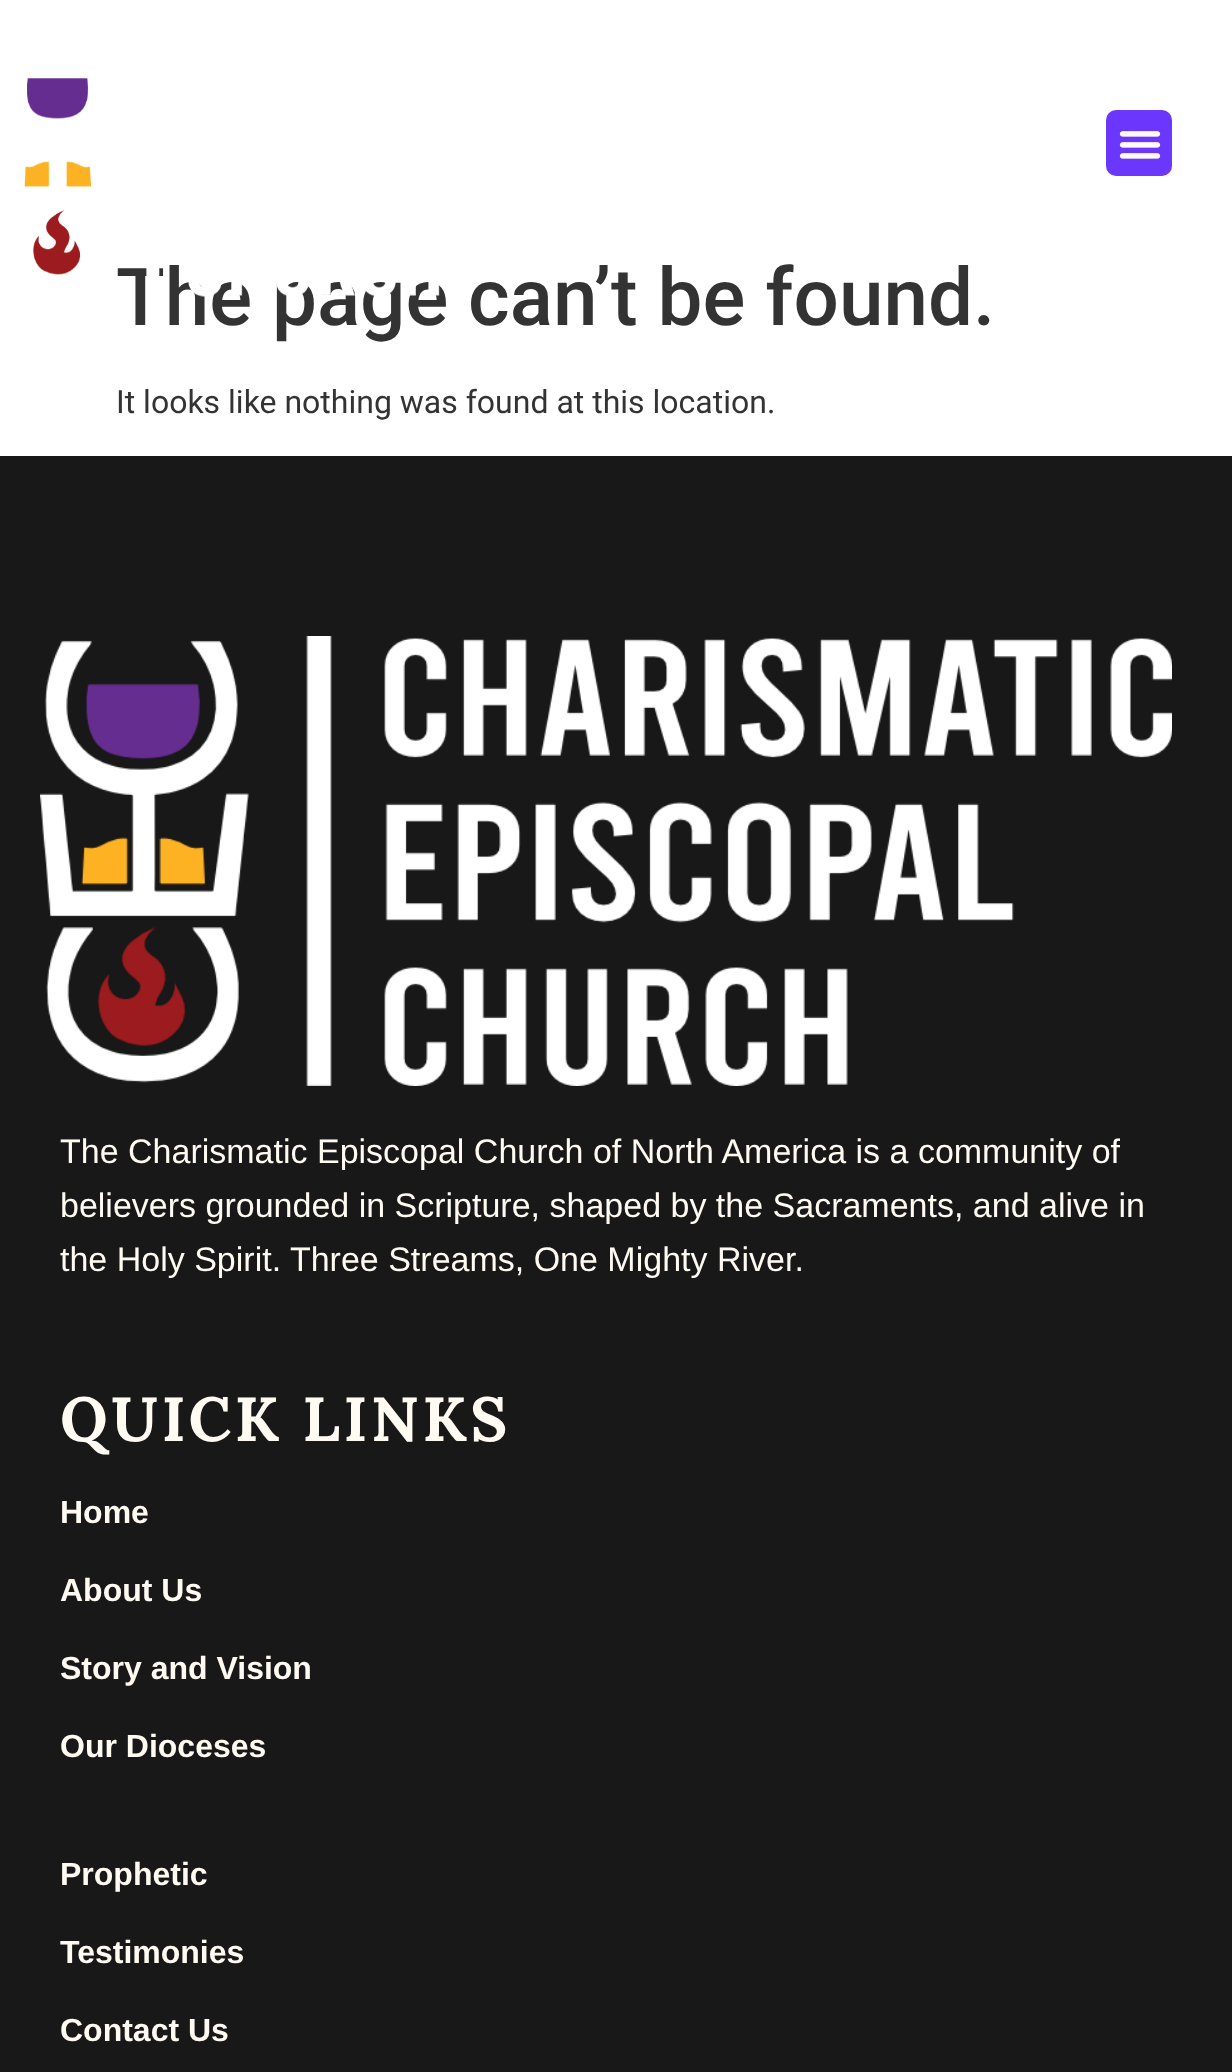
<!DOCTYPE html>
<meta charset="utf-8">
<style>body { margin: 0 } canvas { display: block }</style>
<canvas id="canvas" width="1232" height="2072"></canvas>
<img id="img1" src="images/2.png" hidden>
<img id="img2" src="images/3.png" hidden>
<img id="img3" src="images/1.png" hidden>
<script>
window.onload = function () {
    const canvas = document.getElementById('canvas');
    const context = canvas.getContext('2d');
    context.miterLimit = 4;
    context.fontKerning = 'normal';

    context.fillStyle = 'rgb(255, 255, 255)';
    context.fillRect(0, 0, 1232, 2072);
    context.fillStyle = 'rgb(108, 55, 252)';
    context.beginPath();
    context.roundRect(1106, 110, 66, 66, 10);
    context.fill();
    context.drawImage(document.getElementById('img1'), 1119, 131, 42, 28);
    context.fillStyle = 'rgb(24, 24, 24)';
    context.fillRect(0, 456, 1232, 1616);
    context.drawImage(document.getElementById('img2'), 40, 636, 1132, 450);
    context.font = '500 80px Roboto';
    context.fillStyle = 'rgb(51, 51, 51)';
    context.fillText('The page can’t be found.', 116, 325);
    context.drawImage(document.getElementById('img3'), 24, 78, 416, 219);
    context.font = '32px Roboto';
    context.fillText('It looks like nothing was found at this location.', 116, 413);
    context.font = '34px Liberation Sans';
    context.fillStyle = 'rgb(255, 251, 243)';
    context.fillText('The Charismatic Episcopal Church of North America is a community of', 60, 1163);
    context.fillText('believers grounded in Scripture, shaped by the Sacraments, and alive in', 60, 1217);
    context.fillText('the Holy Spirit. Three Streams, One Mighty River.', 60, 1271);
    context.letterSpacing = '3.6px';
    context.font = 'bold 62px Lora';
    context.fillText('QUICK LINKS', 60, 1441);
    context.letterSpacing = '0px';
    context.font = 'bold 32px Liberation Sans';
    context.fillText('Home', 60, 1523);
    context.fillText('About Us', 60, 1601);
    context.fillText('Story and Vision', 60, 1679);
    context.fillText('Our Dioceses', 60, 1757);
    context.fillText('Prophetic', 60, 1885);
    context.fillText('Testimonies', 60, 1963);
    context.fillText('Contact Us', 60, 2041);
};
</script>
